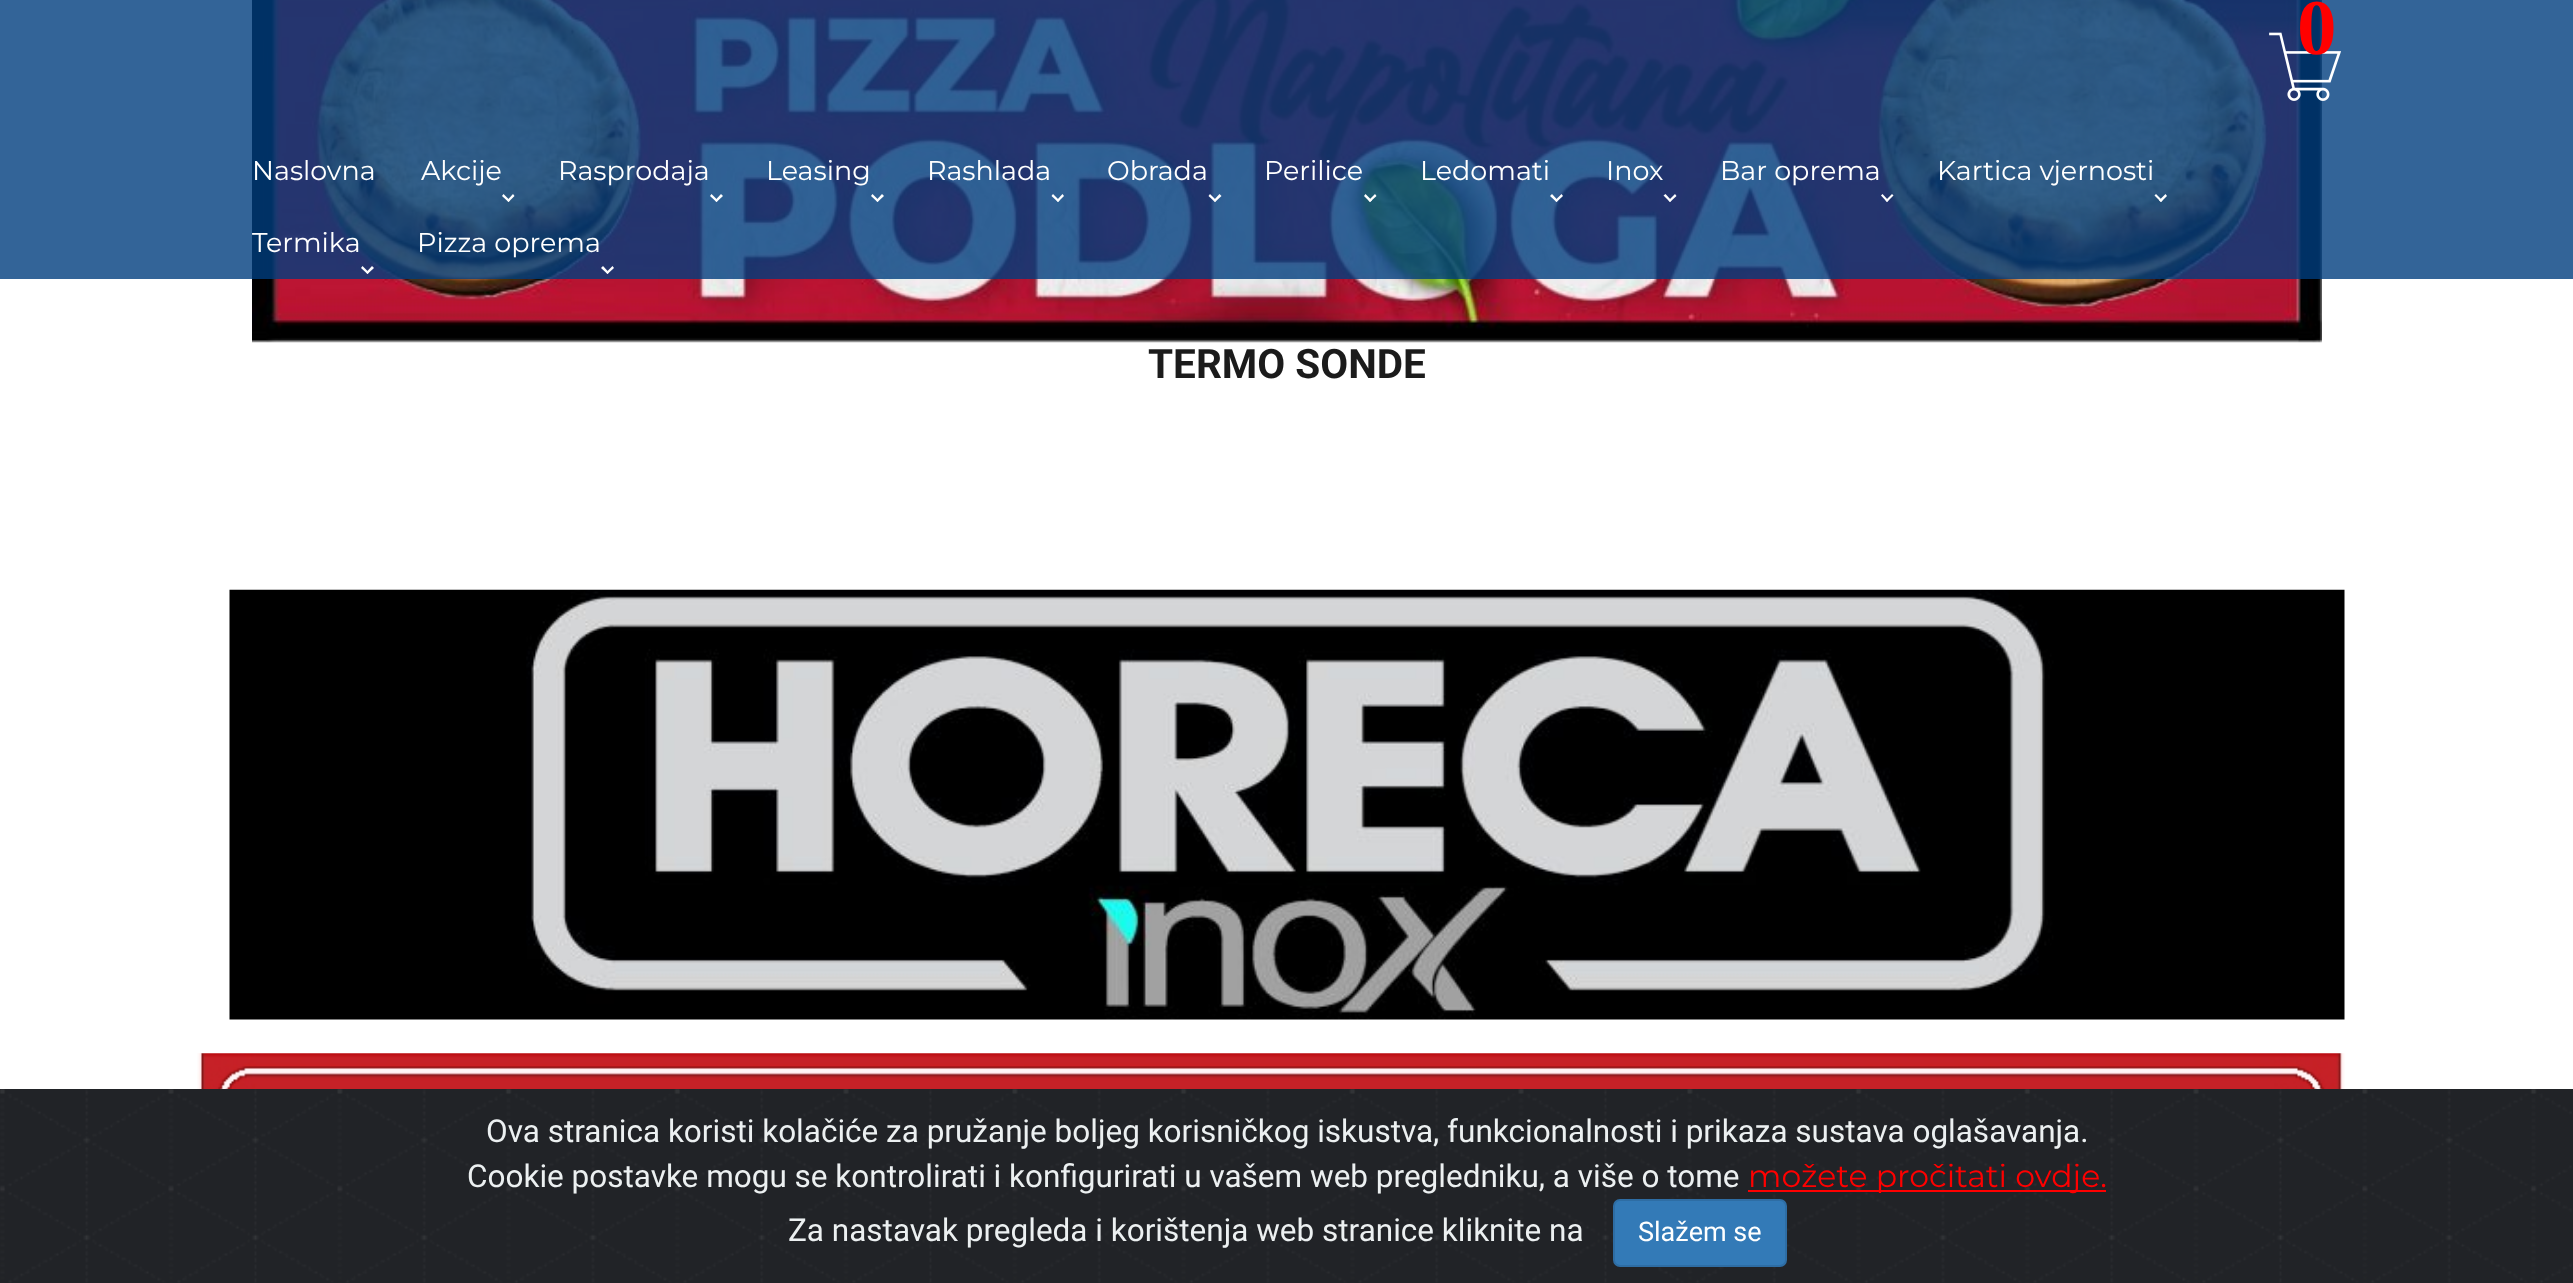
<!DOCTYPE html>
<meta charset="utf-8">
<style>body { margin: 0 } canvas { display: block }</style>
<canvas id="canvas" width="2573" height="1283"></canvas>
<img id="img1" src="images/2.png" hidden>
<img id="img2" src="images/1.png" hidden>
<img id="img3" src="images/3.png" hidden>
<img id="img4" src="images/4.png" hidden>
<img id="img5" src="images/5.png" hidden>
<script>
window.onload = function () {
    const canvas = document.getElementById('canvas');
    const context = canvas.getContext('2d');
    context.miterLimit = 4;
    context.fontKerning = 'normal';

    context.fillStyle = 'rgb(255, 255, 255)';
    context.fillRect(0, 0, 2573, 1283);
    context.drawImage(document.getElementById('img1'), 252, 0, 2070, 343);
    context.fillStyle = 'rgba(0, 61, 126, 0.8)';
    context.fillRect(0, 0, 2573, 279);
    context.drawImage(document.getElementById('img2'), 2269, 32, 72, 69);
    context.fillStyle = 'rgb(255, 255, 255)';
    context.beginPath();
    context.moveTo(513, 194);
    context.lineTo(514.5, 196);
    context.lineTo(508.5, 202);
    context.lineTo(507, 200.5);
    context.closePath();
    context.fill();
    context.beginPath();
    context.moveTo(503.5, 194);
    context.lineTo(510, 200.5);
    context.lineTo(508.5, 202);
    context.lineTo(502, 196);
    context.closePath();
    context.fill();
    context.beginPath();
    context.moveTo(721, 194);
    context.lineTo(723, 196);
    context.lineTo(716.5, 202);
    context.lineTo(715, 200.5);
    context.closePath();
    context.fill();
    context.beginPath();
    context.moveTo(711.5, 194);
    context.lineTo(718, 200.5);
    context.lineTo(716.5, 202);
    context.lineTo(710, 196);
    context.closePath();
    context.fill();
    context.beginPath();
    context.moveTo(882, 194);
    context.lineTo(884, 196);
    context.lineTo(877.5, 202);
    context.lineTo(876, 200.5);
    context.closePath();
    context.fill();
    context.beginPath();
    context.moveTo(872.5, 194);
    context.lineTo(879, 200.5);
    context.lineTo(877.5, 202);
    context.lineTo(871, 196);
    context.closePath();
    context.fill();
    context.beginPath();
    context.moveTo(1062.5, 194);
    context.lineTo(1064, 196);
    context.lineTo(1058, 202);
    context.lineTo(1056.5, 200.5);
    context.closePath();
    context.fill();
    context.beginPath();
    context.moveTo(1053, 194);
    context.lineTo(1059.5, 200.5);
    context.lineTo(1058, 202);
    context.lineTo(1051.5, 196);
    context.closePath();
    context.fill();
    context.beginPath();
    context.moveTo(1219.5, 194);
    context.lineTo(1221.5, 196);
    context.lineTo(1215, 202);
    context.lineTo(1213.5, 200.5);
    context.closePath();
    context.fill();
    context.beginPath();
    context.moveTo(1210, 194);
    context.lineTo(1216.5, 200.5);
    context.lineTo(1215, 202);
    context.lineTo(1208.5, 196);
    context.closePath();
    context.fill();
    context.beginPath();
    context.moveTo(1375, 194);
    context.lineTo(1376.5, 196);
    context.lineTo(1370, 202);
    context.lineTo(1368.5, 200.5);
    context.closePath();
    context.fill();
    context.beginPath();
    context.moveTo(1365.5, 194);
    context.lineTo(1372, 200.5);
    context.lineTo(1370, 202);
    context.lineTo(1364, 196);
    context.closePath();
    context.fill();
    context.beginPath();
    context.moveTo(1561.5, 194);
    context.lineTo(1563, 196);
    context.lineTo(1556.5, 202);
    context.lineTo(1555, 200.5);
    context.closePath();
    context.fill();
    context.beginPath();
    context.moveTo(1552, 194);
    context.lineTo(1558, 200.5);
    context.lineTo(1556.5, 202);
    context.lineTo(1550, 196);
    context.closePath();
    context.fill();
    context.beginPath();
    context.moveTo(1675, 194);
    context.lineTo(1676.5, 196);
    context.lineTo(1670, 202);
    context.lineTo(1668.5, 200.5);
    context.closePath();
    context.fill();
    context.beginPath();
    context.moveTo(1665.5, 194);
    context.lineTo(1671.5, 200.5);
    context.lineTo(1670, 202);
    context.lineTo(1663.5, 195.5);
    context.closePath();
    context.fill();
    context.beginPath();
    context.moveTo(1892, 194);
    context.lineTo(1893.5, 195.5);
    context.lineTo(1887, 202);
    context.lineTo(1885.5, 200.5);
    context.closePath();
    context.fill();
    context.beginPath();
    context.moveTo(1882.5, 194);
    context.lineTo(1888.5, 200.5);
    context.lineTo(1887, 202);
    context.lineTo(1881, 195.5);
    context.closePath();
    context.fill();
    context.beginPath();
    context.moveTo(2165.5, 194);
    context.lineTo(2167, 196);
    context.lineTo(2161, 202);
    context.lineTo(2159, 200.5);
    context.closePath();
    context.fill();
    context.beginPath();
    context.moveTo(2156, 194);
    context.lineTo(2162.5, 200.5);
    context.lineTo(2161, 202);
    context.lineTo(2154.5, 195.5);
    context.closePath();
    context.fill();
    context.beginPath();
    context.moveTo(372, 266);
    context.lineTo(374, 268);
    context.lineTo(367.5, 274);
    context.lineTo(366, 272.5);
    context.closePath();
    context.fill();
    context.beginPath();
    context.moveTo(362.5, 266);
    context.lineTo(369, 272.5);
    context.lineTo(367.5, 274);
    context.lineTo(361, 268);
    context.closePath();
    context.fill();
    context.beginPath();
    context.moveTo(612.5, 266);
    context.lineTo(614, 268);
    context.lineTo(607.5, 274);
    context.lineTo(606, 272.5);
    context.closePath();
    context.fill();
    context.beginPath();
    context.moveTo(603, 266);
    context.lineTo(609, 272.5);
    context.lineTo(607.5, 274);
    context.lineTo(601, 268);
    context.closePath();
    context.fill();
    context.drawImage(document.getElementById('img3'), 229, 589, 2116, 431);
    context.drawImage(document.getElementById('img4'), 197, 1053, 2148, 36);
    context.fillStyle = 'rgb(33, 35, 39)';
    context.fillRect(2572, 1089, 1, 194);
    context.drawImage(document.getElementById('img5'), 0, 1089, 2572, 194);
    context.fillStyle = 'rgb(255, 0, 0)';
    context.fillRect(1748, 1190, 358, 2);
    context.fillStyle = 'rgb(51, 122, 183)';
    context.beginPath();
    context.roundRect(1614, 1200, 172, 66, 6);
    context.fill();
    context.strokeStyle = 'rgb(46, 109, 164)';
    context.lineWidth = 2;
    context.stroke();
    context.font = 'bold 79px Liberation Serif';
    context.fillStyle = 'rgb(255, 0, 0)';
    context.fillText('0', 2297, 54);
    context.font = '27px Montserrat';
    context.fillStyle = 'rgb(255, 255, 255)';
    context.fillText('Naslovna', 252, 180);
    context.fillText('Akcije', 421, 180);
    context.fillText('Rasprodaja', 558, 180);
    context.fillText('Leasing', 766, 180);
    context.fillText('Rashlada', 927, 180);
    context.fillText('Obrada', 1107, 180);
    context.fillText('Perilice', 1264, 180);
    context.fillText('Ledomati', 1420, 180);
    context.fillText('Inox', 1606, 180);
    context.fillText('Bar oprema', 1720, 180);
    context.fillText('Kartica vjernosti', 1937, 180);
    context.fillText('Termika', 252, 252);
    context.fillText('Pizza oprema', 417, 252);
    context.font = 'bold 40.5px Roboto';
    context.fillStyle = 'rgb(27, 27, 27)';
    context.fillText('TERMO SONDE', 1148, 378);
    context.font = '31.5px Roboto';
    context.fillStyle = 'rgb(236, 240, 241)';
    context.fillText('Ova stranica koristi kolačiće za pružanje boljeg korisničkog iskustva, funkcionalnosti i prikaza sustava oglašavanja.', 486, 1142);
    context.fillText('Cookie postavke mogu se kontrolirati i konfigurirati u vašem web pregledniku, a više o tome', 467, 1187);
    context.font = '31.5px Montserrat';
    context.fillStyle = 'rgb(255, 0, 0)';
    context.fillText('možete pročitati ovdje.', 1748, 1187);
    context.font = '31.5px Roboto';
    context.fillStyle = 'rgb(236, 240, 241)';
    context.fillText('Za nastavak pregleda i korištenja web stranice kliknite na', 788, 1241);
    context.font = '27px Roboto';
    context.fillStyle = 'rgb(255, 255, 255)';
    context.fillText('Slažem se', 1638, 1241);
};
</script>
